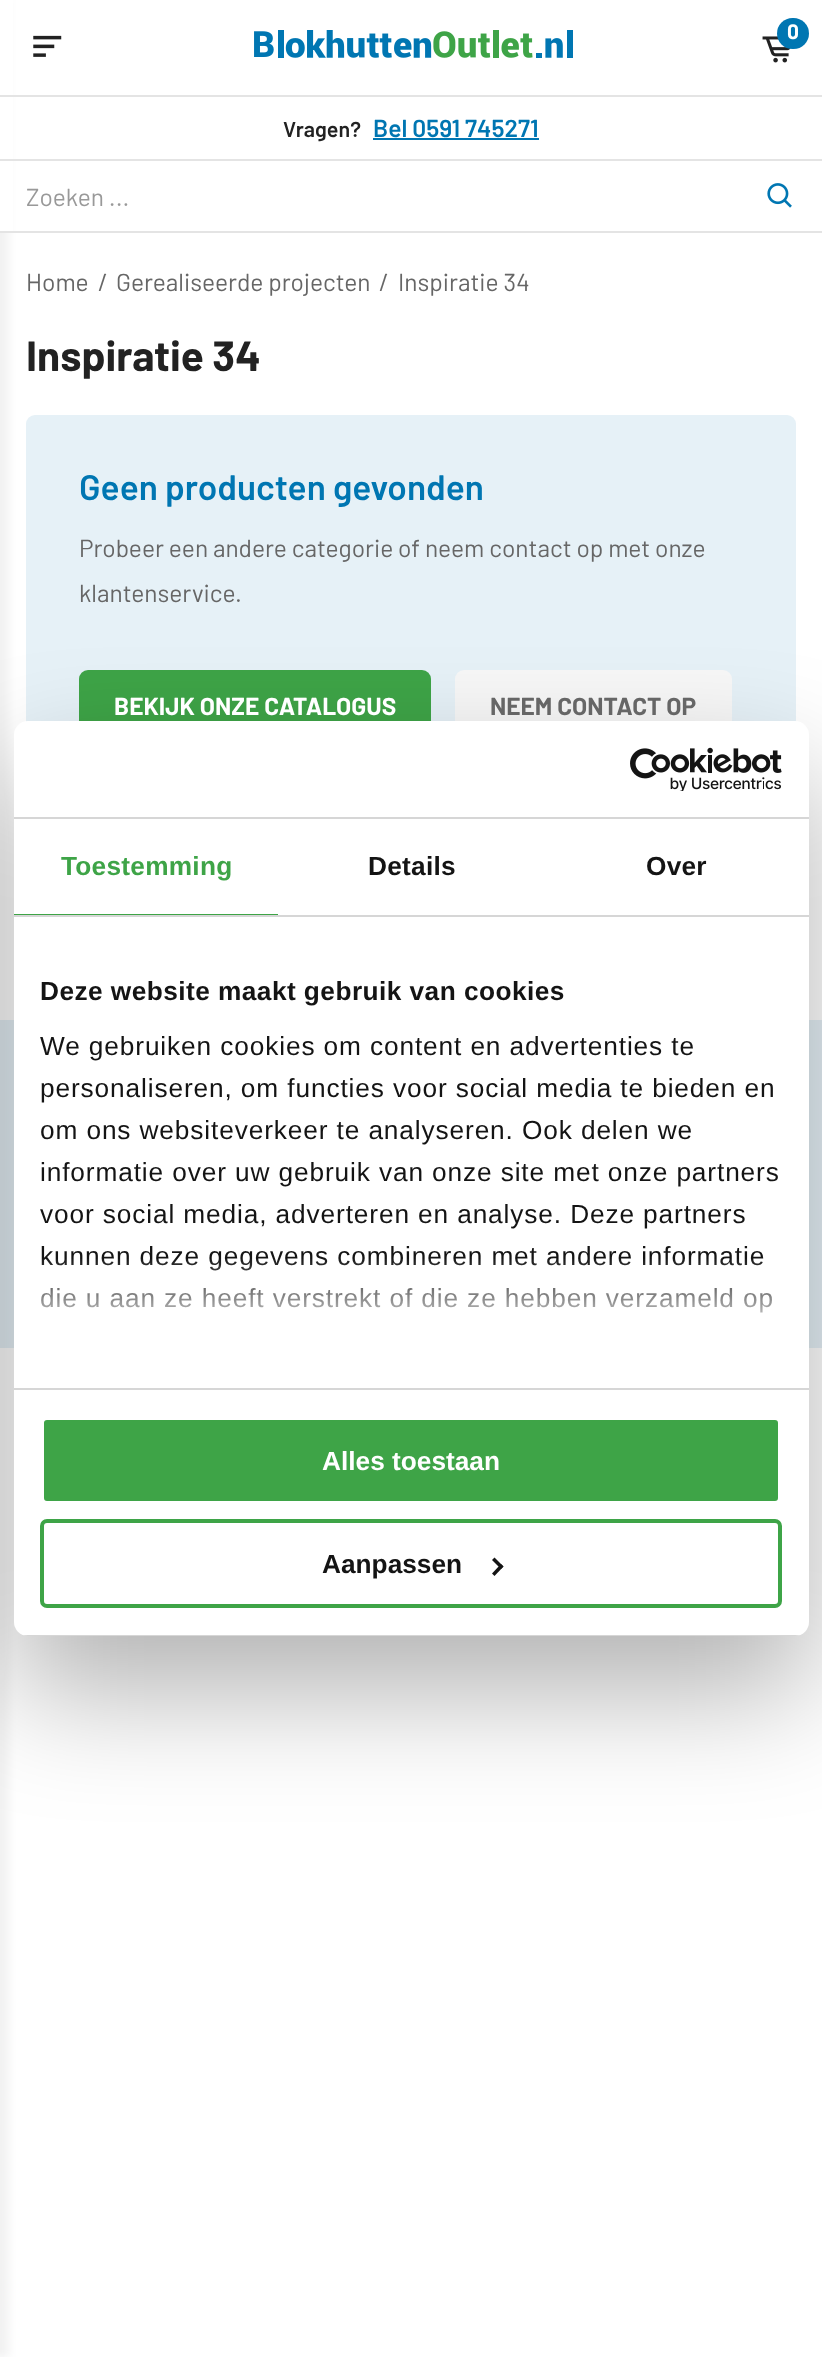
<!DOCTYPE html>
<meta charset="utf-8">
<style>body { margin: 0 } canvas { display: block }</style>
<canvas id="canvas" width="822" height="2357"></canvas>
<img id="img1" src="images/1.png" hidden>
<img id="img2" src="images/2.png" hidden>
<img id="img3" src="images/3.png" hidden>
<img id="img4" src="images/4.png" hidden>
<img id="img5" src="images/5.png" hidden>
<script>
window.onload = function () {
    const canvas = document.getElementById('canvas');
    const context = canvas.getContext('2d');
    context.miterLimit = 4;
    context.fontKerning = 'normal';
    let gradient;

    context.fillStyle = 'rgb(255, 255, 255)';
    context.fillRect(0, 0, 822, 2357);
    context.fillStyle = 'rgb(230, 241, 247)';
    context.fillRect(0, 1020, 822, 328);
    context.fillStyle = 'rgba(0, 0, 0, 0.05)';
    context.filter = 'blur(4.5px)';
    context.beginPath();
    context.rect(-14, 0, 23, 2357);
    context.fill();
    context.filter = 'none';
    context.fillStyle = 'rgb(255, 255, 255)';
    context.fillRect(0, 0, 13, 95);
    context.drawImage(document.getElementById('img1'), 33, 35, 29, 22);
    context.drawImage(document.getElementById('img2'), 254, 30, 319, 28);
    context.drawImage(document.getElementById('img3'), 762, 36, 29, 27);
    context.fillStyle = 'rgb(0, 118, 178)';
    context.beginPath();
    context.roundRect(777, 18, 32, 31, 15.5);
    context.fill();
    context.fillStyle = 'rgb(255, 255, 255)';
    context.fillRect(0, 97, 13, 62);
    context.fillStyle = 'rgb(228, 228, 228)';
    context.fillRect(0, 95, 822, 2);
    context.fillRect(0, 159, 822, 2);
    context.fillStyle = 'rgb(0, 118, 178)';
    context.fillRect(373, 138, 166, 2);
    context.fillStyle = 'rgb(255, 255, 255)';
    context.fillRect(0, 161, 13, 70);
    context.fillStyle = 'rgb(228, 228, 228)';
    context.fillRect(0, 231, 822, 2);
    context.drawImage(document.getElementById('img4'), 767, 183, 25, 25);
    context.fillStyle = 'rgb(230, 241, 247)';
    context.beginPath();
    context.roundRect(26, 415, 770, 387, 9);
    context.fill();
    context.fillStyle = 'rgb(62, 164, 71)';
    context.beginPath();
    context.roundRect(79, 670, 352, 79, 9);
    context.fill();
    context.fillStyle = 'rgb(247, 247, 247)';
    context.beginPath();
    context.roundRect(455, 670, 277, 79, 9);
    context.fill();
    context.fillStyle = 'rgba(0, 0, 0, 0.3)';
    context.filter = 'blur(59.5px)';
    context.beginPath();
    context.roundRect(14, 777, 795, 915, 14);
    context.fill();
    context.filter = 'none';
    context.fillStyle = 'rgb(255, 255, 255)';
    context.beginPath();
    context.roundRect(14, 721, 795, 915, 14);
    context.fill();
    context.fillStyle = 'rgb(214, 214, 214)';
    context.fillRect(14, 817, 795, 2);
    context.drawImage(document.getElementById('img5'), 630, 747, 152, 44);
    context.fillRect(14, 915, 795, 2);
    context.fillStyle = 'rgb(62, 164, 71)';
    context.fillRect(14, 914, 264, 1);
    context.fillStyle = 'rgb(214, 214, 214)';
    context.fillRect(14, 1388, 795, 2);
    context.save();
    context.beginPath();
    context.roundRect(14, 721, 795, 915, 14);
    context.clip();
    context.fillRect(23, 1635, 777, 1);
    context.restore();
    context.fillStyle = 'rgb(62, 164, 71)';
    context.beginPath();
    context.roundRect(42, 1418, 738, 85, 5);
    context.fill();
    context.strokeStyle = 'rgb(255, 255, 255)';
    context.lineWidth = 4;
    context.stroke();
    context.beginPath();
    context.roundRect(42, 1521, 738, 85, 5);
    context.strokeStyle = 'rgb(62, 164, 71)';
    context.stroke();
    context.fillStyle = 'rgb(20, 20, 20)';
    context.beginPath();
    context.moveTo(494.5, 1557.5);
    context.lineTo(503.5, 1566.5);
    context.lineTo(501, 1569);
    context.lineTo(492, 1560);
    context.closePath();
    context.fill();
    context.beginPath();
    context.moveTo(501, 1564);
    context.lineTo(503.5, 1566.5);
    context.lineTo(494.5, 1576);
    context.lineTo(492, 1573.5);
    context.closePath();
    context.fill();
    context.font = 'bold 21px Barlow';
    context.fillStyle = 'rgb(255, 255, 255)';
    context.fillText('0', 787, 39);
    context.font = '600 21.5px Barlow';
    context.fillStyle = 'rgb(34, 34, 34)';
    context.fillText('Vragen?', 283, 137);
    context.font = '600 24.5px Barlow';
    context.fillStyle = 'rgb(0, 118, 178)';
    context.fillText('Bel 0591 745271', 373, 137);
    context.font = '24.5px Barlow';
    context.fillStyle = 'rgb(153, 153, 153)';
    context.fillText('Zoeken ...', 26, 206);
    context.fillStyle = 'rgb(102, 102, 102)';
    context.fillText('Home', 26, 291);
    context.fillText('/', 98, 291);
    context.fillText('Gerealiseerde projecten', 116, 291);
    context.fillText('/', 379, 291);
    context.fillText('Inspiratie 34', 398, 291);
    context.font = 'bold 42.25px Barlow';
    context.fillStyle = 'rgb(34, 34, 34)';
    context.fillText('Inspiratie 34', 26, 371);
    context.font = '600 35.25px Barlow';
    context.fillStyle = 'rgb(0, 118, 178)';
    context.fillText('Geen producten gevonden', 79, 500);
    context.font = '24.5px Barlow';
    context.fillStyle = 'rgb(102, 102, 102)';
    context.fillText('Probeer een andere categorie of neem contact op met onze', 79, 557);
    context.fillText('klantenservice.', 79, 602);
    context.font = 'bold 24.5px Barlow';
    context.fillStyle = 'rgb(255, 255, 255)';
    context.fillText('BEKIJK ONZE CATALOGUS', 114, 715);
    context.fillStyle = 'rgb(102, 102, 102)';
    context.fillText('NEEM CONTACT OP', 490, 715);
    context.letterSpacing = '0.25px';
    context.font = 'bold 26.25px Liberation Sans';
    context.fillStyle = 'rgb(62, 164, 71)';
    context.fillText('Toestemming', 61, 875);
    context.fillStyle = 'rgb(20, 20, 20)';
    context.fillText('Details', 368, 875);
    context.fillText('Over', 646, 875);
    context.letterSpacing = '0.45px';
    context.fillText('Deze website maakt gebruik van cookies', 40, 1000);
    context.letterSpacing = '0.88px';
    context.font = '26.25px Liberation Sans';
    context.fillText('We gebruiken cookies om content en advertenties te', 40, 1055);
    context.fillText('personaliseren, om functies voor social media te bieden en', 40, 1097);
    context.fillText('om ons websiteverkeer te analyseren. Ook delen we', 40, 1139);
    context.fillText('informatie over uw gebruik van onze site met onze partners', 40, 1181);
    context.fillText('voor social media, adverteren en analyse. Deze partners', 40, 1223);
    context.fillText('kunnen deze gegevens combineren met andere informatie', 40, 1265);
    context.fillText('die u aan ze heeft verstrekt of die ze hebben verzameld op', 40, 1307);
    gradient = context.createLinearGradient(400, 1388, 400, 1257);
    gradient.addColorStop(0, 'rgb(255, 255, 255)');
    gradient.addColorStop(0.5, 'rgba(255, 255, 255, 0.8)');
    gradient.addColorStop(1, 'rgba(255, 255, 255, 0)');
    context.fillStyle = gradient;
    context.fillRect(41, 1259, 731, 54);
    context.letterSpacing = '0px';
    context.font = 'bold 26.25px Liberation Sans';
    context.fillStyle = 'rgb(255, 255, 255)';
    context.fillText('Alles toestaan', 322, 1470);
    context.fillStyle = 'rgb(20, 20, 20)';
    context.fillText('Aanpassen', 322, 1573);
};
</script>
